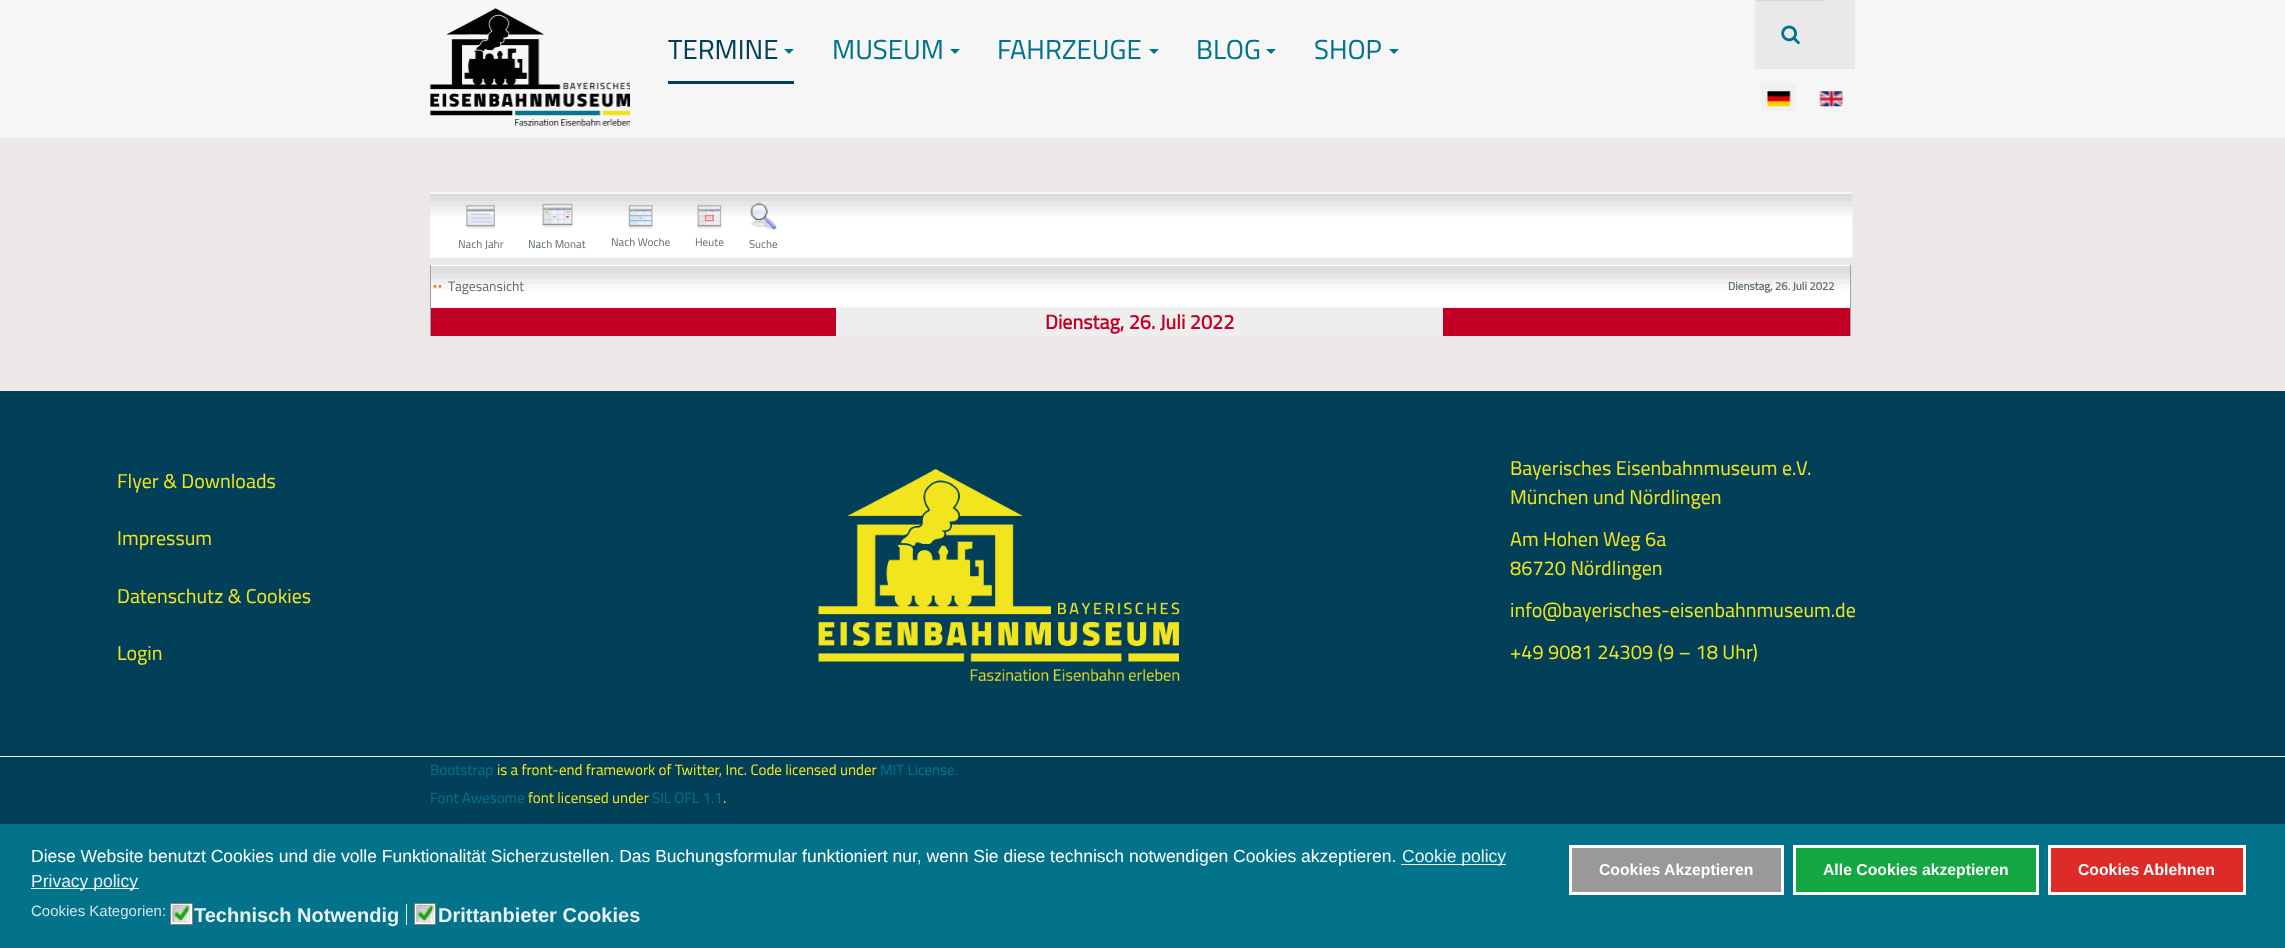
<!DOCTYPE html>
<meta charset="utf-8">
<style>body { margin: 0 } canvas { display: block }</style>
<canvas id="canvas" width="2285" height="948"></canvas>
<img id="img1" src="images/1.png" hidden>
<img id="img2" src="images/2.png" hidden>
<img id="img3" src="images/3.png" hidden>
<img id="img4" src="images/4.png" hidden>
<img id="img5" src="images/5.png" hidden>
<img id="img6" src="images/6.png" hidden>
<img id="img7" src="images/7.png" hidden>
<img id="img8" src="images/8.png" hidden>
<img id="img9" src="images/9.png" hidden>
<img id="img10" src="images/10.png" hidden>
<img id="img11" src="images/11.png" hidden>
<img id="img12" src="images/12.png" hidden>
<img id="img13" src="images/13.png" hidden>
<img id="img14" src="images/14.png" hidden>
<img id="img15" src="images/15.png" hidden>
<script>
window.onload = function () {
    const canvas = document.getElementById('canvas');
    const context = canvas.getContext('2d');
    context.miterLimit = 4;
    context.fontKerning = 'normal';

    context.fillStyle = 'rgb(237, 232, 232)';
    context.fillRect(0, 0, 2285, 948);
    context.fillStyle = 'rgb(246, 246, 246)';
    context.fillRect(0, 0, 2285, 138);
    context.drawImage(document.getElementById('img1'), 430, 0, 200, 126);
    context.fillStyle = 'rgb(233, 233, 233)';
    context.fillRect(1755, 0, 100, 69);
    context.fillStyle = 'rgb(216, 216, 216)';
    context.fillRect(1756, 0, 69, 1);
    context.drawImage(document.getElementById('img2'), 1781, 25, 19, 20);
    context.fillStyle = 'rgb(240, 240, 240)';
    context.fillRect(1761, 83, 35, 28);
    context.drawImage(document.getElementById('img3'), 1767, 91, 24, 16);
    context.drawImage(document.getElementById('img4'), 1819, 91, 24, 16);
    context.fillStyle = 'rgb(2, 64, 89)';
    context.fillRect(668, 81, 126, 3);
    context.fillStyle = 'rgb(3, 115, 140)';
    context.beginPath();
    context.moveTo(784, 49);
    context.lineTo(794, 49);
    context.lineTo(789, 54);
    context.closePath();
    context.fill();
    context.beginPath();
    context.moveTo(950, 49);
    context.lineTo(960, 49);
    context.lineTo(955, 54);
    context.closePath();
    context.fill();
    context.beginPath();
    context.moveTo(1149, 49);
    context.lineTo(1159, 49);
    context.lineTo(1154, 54);
    context.closePath();
    context.fill();
    context.beginPath();
    context.moveTo(1266, 49);
    context.lineTo(1276, 49);
    context.lineTo(1271, 54);
    context.closePath();
    context.fill();
    context.beginPath();
    context.moveTo(1389, 49);
    context.lineTo(1399, 49);
    context.lineTo(1394, 54);
    context.closePath();
    context.fill();
    context.drawImage(document.getElementById('img5'), 430, 192, 1423, 66);
    context.drawImage(document.getElementById('img6'), 466, 205, 29, 24);
    context.drawImage(document.getElementById('img7'), 542, 203, 31, 25);
    context.drawImage(document.getElementById('img8'), 628, 205, 25, 24);
    context.drawImage(document.getElementById('img9'), 697, 204, 25, 25);
    context.drawImage(document.getElementById('img10'), 750, 202, 27, 29);
    context.fillStyle = 'rgb(149, 165, 173)';
    context.fillRect(1850, 265, 1, 71);
    context.fillRect(430, 265, 1, 71);
    context.drawImage(document.getElementById('img11'), 431, 265, 1419, 43);
    context.drawImage(document.getElementById('img12'), 433, 284, 9, 5);
    context.fillStyle = 'rgb(194, 0, 37)';
    context.fillRect(431, 308, 1419, 28);
    context.fillStyle = 'rgb(238, 238, 238)';
    context.fillRect(836, 308, 607, 28);
    context.fillStyle = 'rgb(2, 64, 89)';
    context.fillRect(0, 391, 2285, 433);
    context.drawImage(document.getElementById('img13'), 818, 468, 362, 213);
    context.fillStyle = 'rgb(238, 238, 238)';
    context.fillRect(0, 756, 2285, 1);
    context.fillStyle = 'rgb(3, 115, 140)';
    context.fillRect(0, 824, 2285, 124);
    context.fillStyle = 'rgb(230, 241, 244)';
    context.fillRect(1401, 864, 105, 1);
    context.fillRect(31, 888, 108, 1);
    context.fillStyle = 'rgb(153, 153, 153)';
    context.beginPath();
    context.rect(1570.5, 846.5, 212, 47);
    context.fill();
    context.strokeStyle = 'rgb(255, 255, 255)';
    context.lineWidth = 3;
    context.stroke();
    context.fillStyle = 'rgb(20, 168, 66)';
    context.beginPath();
    context.rect(1794.5, 846.5, 243, 47);
    context.fill();
    context.stroke();
    context.fillStyle = 'rgb(221, 43, 39)';
    context.beginPath();
    context.rect(2049.5, 846.5, 195, 47);
    context.fill();
    context.stroke();
    context.fillStyle = 'rgb(255, 255, 255)';
    context.beginPath();
    context.roundRect(170.5, 903.5, 22, 21, 0.5);
    context.fill();
    context.strokeStyle = 'rgb(128, 128, 128)';
    context.lineWidth = 1;
    context.stroke();
    context.drawImage(document.getElementById('img14'), 172, 905, 19, 18);
    context.beginPath();
    context.moveTo(189, 906);
    context.lineTo(189.5, 914);
    context.bezierCurveTo(189.5, 924, 191.5, 922, 181, 922);
    context.lineTo(173.5, 921.5);
    context.strokeStyle = 'rgb(220, 221, 222)';
    context.lineWidth = 1.2;
    context.stroke();
    context.beginPath();
    context.moveTo(173.5, 921.5);
    context.lineTo(173, 914);
    context.bezierCurveTo(173, 903.5, 171, 905.5, 181, 905.5);
    context.lineTo(189, 906);
    context.strokeStyle = 'rgb(179, 179, 179)';
    context.stroke();
    context.fillStyle = 'rgb(230, 241, 244)';
    context.fillRect(406, 904, 1, 21);
    context.fillStyle = 'rgb(255, 255, 255)';
    context.beginPath();
    context.roundRect(414.5, 903.5, 21, 21, 0.5);
    context.fill();
    context.strokeStyle = 'rgb(128, 128, 128)';
    context.lineWidth = 1;
    context.stroke();
    context.drawImage(document.getElementById('img15'), 416, 905, 19, 18);
    context.beginPath();
    context.moveTo(433, 906);
    context.lineTo(433, 914);
    context.bezierCurveTo(433, 924, 435.5, 922, 425, 922);
    context.lineTo(417, 921.5);
    context.strokeStyle = 'rgb(220, 221, 222)';
    context.lineWidth = 1.2;
    context.stroke();
    context.beginPath();
    context.moveTo(417, 921.5);
    context.lineTo(417, 914);
    context.bezierCurveTo(417, 903.5, 414.5, 905.5, 425, 905.5);
    context.lineTo(433, 906);
    context.strokeStyle = 'rgb(179, 179, 179)';
    context.stroke();
    context.font = '27.5px Cairo';
    context.fillStyle = 'rgb(2, 64, 89)';
    context.fillText('TERMINE', 668, 59);
    context.fillStyle = 'rgb(3, 115, 140)';
    context.fillText('MUSEUM', 832, 59);
    context.fillText('FAHRZEUGE', 997, 59);
    context.fillText('BLOG', 1196, 59);
    context.fillText('SHOP', 1314, 59);
    context.font = '11.25px Cairo';
    context.fillStyle = 'rgb(96, 111, 121)';
    context.fillText('Nach Jahr', 458, 248);
    context.fillText('Nach Monat', 528, 248);
    context.fillText('Nach Woche', 611, 246);
    context.fillText('Heute', 695, 246);
    context.fillText('Suche', 749, 248);
    context.font = '13.75px Cairo';
    context.fillText('Tagesansicht', 448, 291);
    context.font = 'bold 11.25px Cairo';
    context.fillText('Dienstag, 26. Juli 2022', 1728, 290);
    context.font = 'bold 20px Cairo';
    context.fillStyle = 'rgb(194, 0, 37)';
    context.fillText('Dienstag, 26. Juli 2022', 1045, 329);
    context.font = '20px Cairo';
    context.fillStyle = 'rgb(242, 228, 29)';
    context.fillText('Flyer & Downloads', 117, 488);
    context.fillText('Impressum', 117, 545);
    context.fillText('Datenschutz & Cookies', 117, 603);
    context.fillText('Login', 117, 660);
    context.fillText('Bayerisches Eisenbahnmuseum e.V.', 1510, 475);
    context.fillText('München und Nördlingen', 1510, 504);
    context.fillText('Am Hohen Weg 6a', 1510, 546);
    context.fillText('86720 Nördlingen', 1510, 575);
    context.fillText('info@bayerisches-eisenbahnmuseum.de', 1510, 617);
    context.fillText('+49 9081 24309 (9 – 18 Uhr)', 1510, 659);
    context.font = '15px Cairo';
    context.fillStyle = 'rgb(3, 115, 140)';
    context.fillText('Bootstrap', 430, 775);
    context.fillStyle = 'rgb(242, 228, 29)';
    context.fillText('is a front-end framework of Twitter, Inc. Code licensed under', 497, 775);
    context.fillStyle = 'rgb(3, 115, 140)';
    context.fillText('MIT License.', 880, 775);
    context.fillText('Font Awesome', 430, 803);
    context.fillStyle = 'rgb(242, 228, 29)';
    context.fillText('font licensed under', 528, 803);
    context.fillStyle = 'rgb(3, 115, 140)';
    context.fillText('SIL OFL 1.1', 652, 803);
    context.fillStyle = 'rgb(242, 228, 29)';
    context.fillText('.', 723, 803);
    context.font = '17.5px Liberation Sans';
    context.fillStyle = 'rgb(255, 255, 255)';
    context.fillText('Diese Website benutzt Cookies und die volle Funktionalität Sicherzustellen. Das Buchungsformular funktioniert nur, wenn Sie diese technisch notwendigen Cookies akzeptieren.', 31, 862);
    context.fillStyle = 'rgb(230, 241, 244)';
    context.fillText('Cookie policy', 1402, 862);
    context.fillText('Privacy policy', 31, 887);
    context.font = 'bold 15.75px Liberation Sans';
    context.fillStyle = 'rgb(255, 255, 255)';
    context.fillText('Cookies Akzeptieren', 1599, 875);
    context.fillText('Alle Cookies akzeptieren', 1823, 875);
    context.fillText('Cookies Ablehnen', 2078, 875);
    context.font = '15px Liberation Sans';
    context.fillStyle = 'rgb(205, 227, 232)';
    context.fillText('Cookies Kategorien:', 31, 916);
    context.font = 'bold 20px Liberation Sans';
    context.fillStyle = 'rgb(230, 241, 244)';
    context.fillText('Technisch Notwendig', 194, 922);
    context.fillText('Drittanbieter Cookies', 438, 922);
};
</script>
